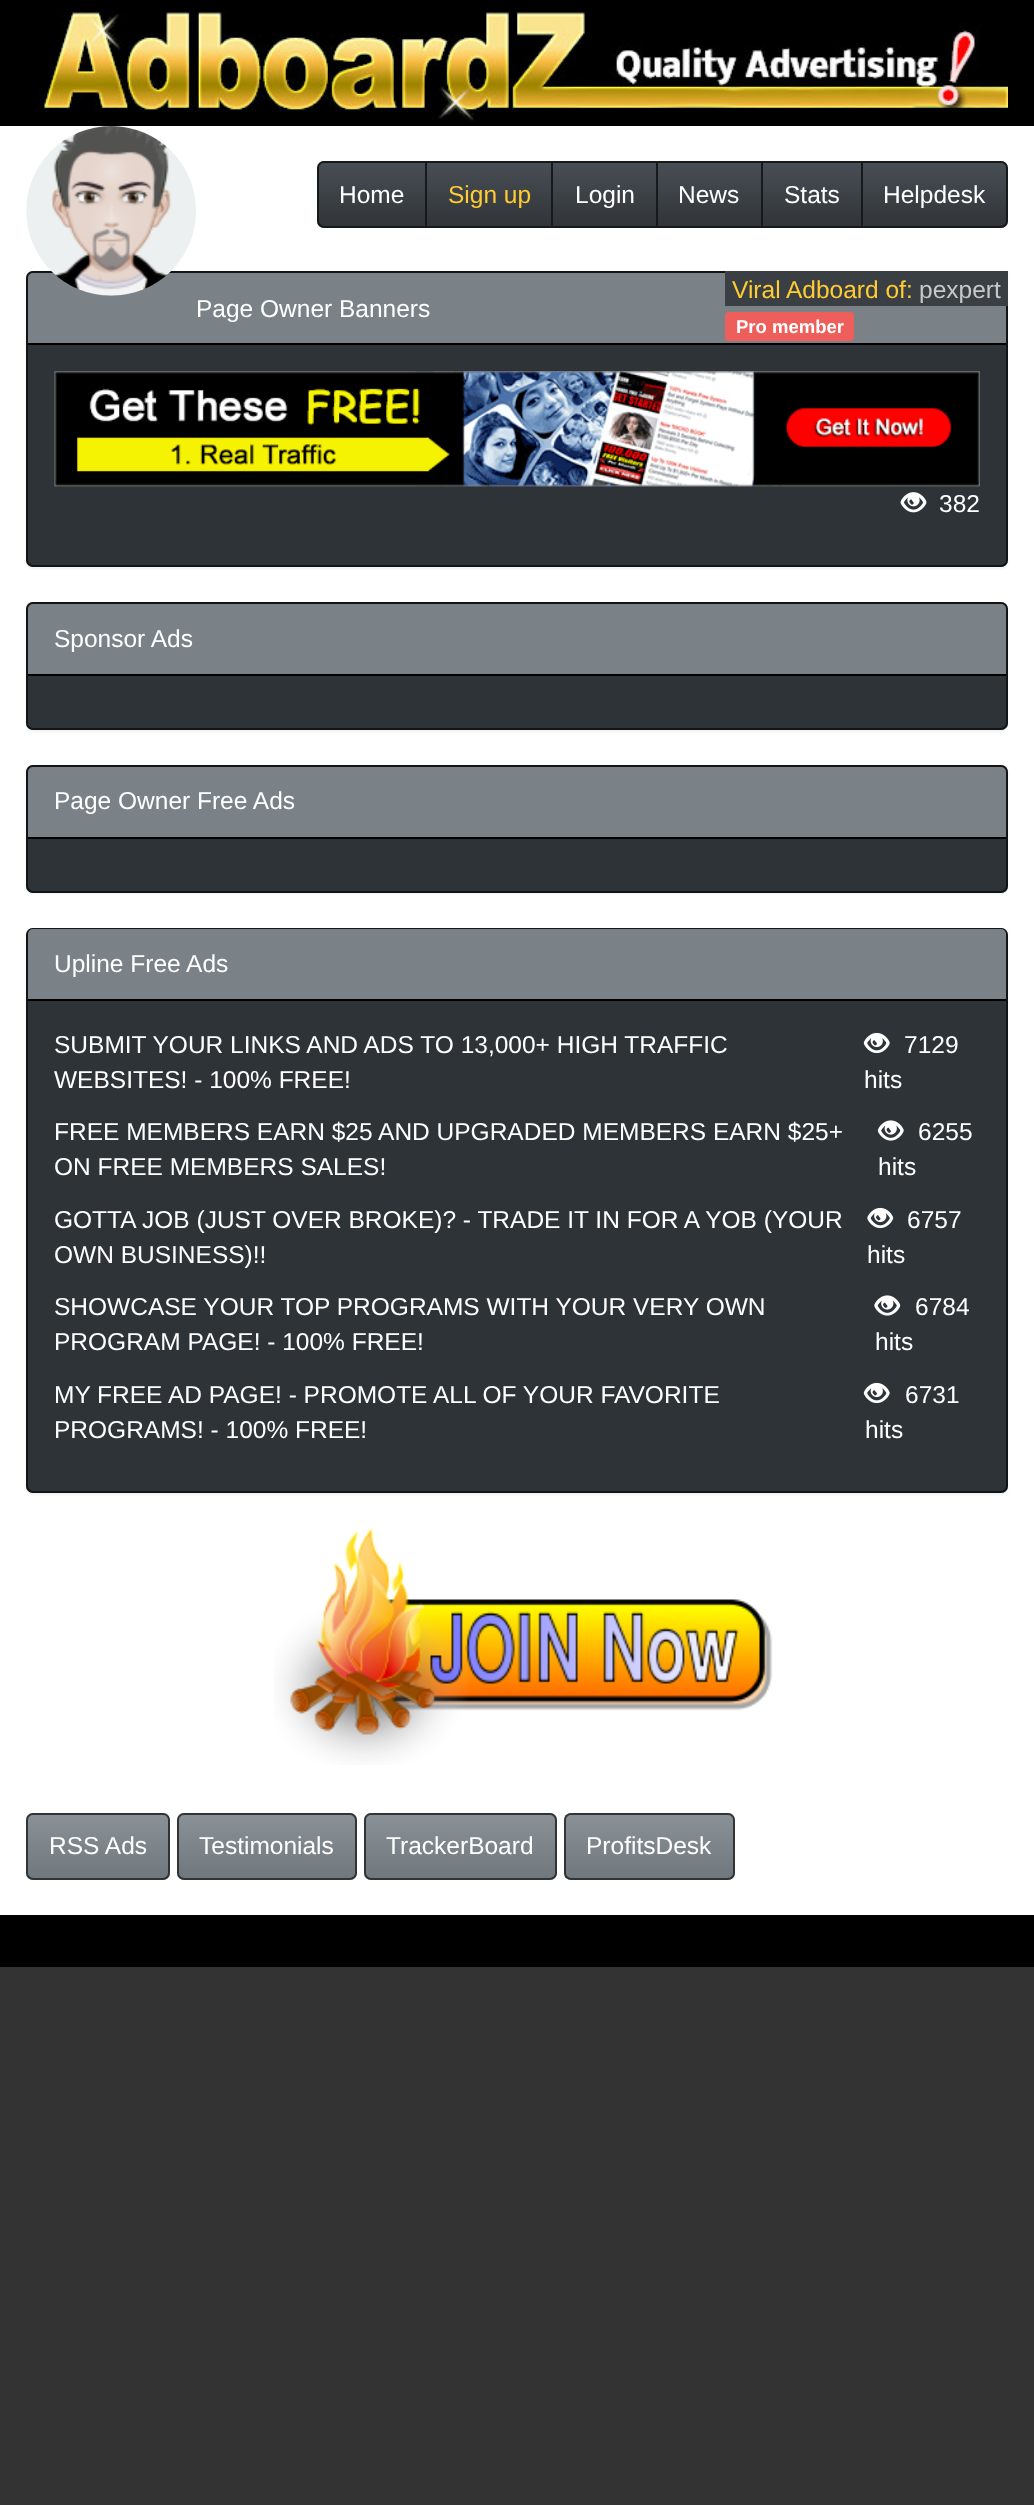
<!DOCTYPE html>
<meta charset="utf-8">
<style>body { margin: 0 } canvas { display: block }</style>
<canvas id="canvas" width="1034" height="2505"></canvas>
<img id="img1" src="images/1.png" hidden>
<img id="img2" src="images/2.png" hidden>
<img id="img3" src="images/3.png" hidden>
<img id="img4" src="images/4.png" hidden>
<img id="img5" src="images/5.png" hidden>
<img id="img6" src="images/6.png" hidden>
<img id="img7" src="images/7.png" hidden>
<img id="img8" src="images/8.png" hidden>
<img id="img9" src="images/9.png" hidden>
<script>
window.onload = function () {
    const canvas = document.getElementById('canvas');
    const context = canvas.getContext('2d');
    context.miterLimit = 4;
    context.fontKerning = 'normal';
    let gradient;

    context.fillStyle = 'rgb(51, 51, 51)';
    context.fillRect(0, 0, 1034, 2505);
    context.fillStyle = 'rgb(0, 0, 0)';
    context.fillRect(0, 0, 1034, 126);
    context.drawImage(document.getElementById('img1'), 37, 11, 971, 110);
    context.fillStyle = 'rgb(255, 255, 255)';
    context.fillRect(0, 126, 1034, 1789);
    context.fillStyle = 'rgba(0, 0, 0, 0.05)';
    context.filter = 'blur(1px)';
    context.beginPath();
    context.roundRect(26, 273, 982, 296, 7);
    context.fill();
    context.filter = 'none';
    context.fillStyle = 'rgb(46, 51, 56)';
    context.beginPath();
    context.roundRect(26, 271, 982, 296, 7);
    context.fill();
    context.beginPath();
    context.roundRect(27, 272, 980, 294, 6);
    context.strokeStyle = 'rgba(0, 0, 0, 0.6)';
    context.lineWidth = 2;
    context.stroke();
    context.fillStyle = 'rgb(122, 130, 136)';
    context.beginPath();
    context.roundRect(28, 273, 978, 72, [5, 5, 0, 0]);
    context.fill();
    context.drawImage(document.getElementById('img2'), 26, 126, 170, 170);
    context.fillStyle = 'rgb(58, 63, 68)';
    context.beginPath();
    context.roundRect(317, 161, 110, 67, [7, 0, 0, 7]);
    context.fill();
    gradient = context.createLinearGradient(372, 163, 372, 226);
    gradient.addColorStop(0, 'rgb(72, 78, 85)');
    gradient.addColorStop(0.6, 'rgb(58, 63, 68)');
    gradient.addColorStop(1, 'rgb(49, 53, 57)');
    context.fillStyle = gradient;
    context.fillRect(319, 163, 106, 63);
    context.beginPath();
    context.roundRect(318, 162, 108, 65, [6, 0, 0, 6]);
    context.stroke();
    gradient = context.createLinearGradient(489, 163, 489, 226);
    gradient.addColorStop(0, 'rgb(72, 78, 85)');
    gradient.addColorStop(0.6, 'rgb(58, 63, 68)');
    gradient.addColorStop(1, 'rgb(49, 53, 57)');
    context.fillStyle = gradient;
    context.fillRect(427, 163, 124, 63);
    context.strokeStyle = 'rgb(23, 25, 27)';
    context.strokeRect(426, 162, 126, 65);
    gradient = context.createLinearGradient(605, 163, 605, 226);
    gradient.addColorStop(0, 'rgb(72, 78, 85)');
    gradient.addColorStop(0.6, 'rgb(58, 63, 68)');
    gradient.addColorStop(1, 'rgb(49, 53, 57)');
    context.fillStyle = gradient;
    context.fillRect(553, 163, 103, 63);
    context.strokeRect(552, 162, 105, 65);
    gradient = context.createLinearGradient(710, 163, 710, 226);
    gradient.addColorStop(0, 'rgb(72, 78, 85)');
    gradient.addColorStop(0.6, 'rgb(58, 63, 68)');
    gradient.addColorStop(1, 'rgb(49, 53, 57)');
    context.fillStyle = gradient;
    context.fillRect(658, 163, 103, 63);
    context.strokeRect(657, 162, 105, 65);
    gradient = context.createLinearGradient(812, 163, 812, 226);
    gradient.addColorStop(0, 'rgb(72, 78, 85)');
    gradient.addColorStop(0.6, 'rgb(58, 63, 68)');
    gradient.addColorStop(1, 'rgb(49, 53, 57)');
    context.fillStyle = gradient;
    context.fillRect(763, 163, 98, 63);
    context.strokeRect(762, 162, 100, 65);
    context.fillStyle = 'rgb(58, 63, 68)';
    context.beginPath();
    context.roundRect(861, 161, 147, 67, [0, 7, 7, 0]);
    context.fill();
    gradient = context.createLinearGradient(935, 163, 935, 226);
    gradient.addColorStop(0, 'rgb(72, 78, 85)');
    gradient.addColorStop(0.6, 'rgb(58, 63, 68)');
    gradient.addColorStop(1, 'rgb(49, 53, 57)');
    context.fillStyle = gradient;
    context.fillRect(863, 163, 143, 63);
    context.beginPath();
    context.roundRect(862, 162, 145, 65, [0, 6, 6, 0]);
    context.strokeStyle = 'rgba(0, 0, 0, 0.6)';
    context.stroke();
    context.fillStyle = 'rgb(58, 63, 68)';
    context.fillRect(725, 271, 283, 35);
    context.fillStyle = 'rgb(238, 95, 91)';
    context.beginPath();
    context.roundRect(725, 312, 129, 29, 4);
    context.fill();
    context.fillStyle = 'rgb(0, 0, 0)';
    context.fillRect(28, 343, 978, 2);
    context.drawImage(document.getElementById('img3'), 54, 371, 926, 116);
    context.drawImage(document.getElementById('img4'), 900, 492, 27, 21);
    context.fillStyle = 'rgba(0, 0, 0, 0.05)';
    context.filter = 'blur(1px)';
    context.beginPath();
    context.roundRect(26, 604, 982, 128, 7);
    context.fill();
    context.filter = 'none';
    context.fillStyle = 'rgb(46, 51, 56)';
    context.beginPath();
    context.roundRect(26, 602, 982, 128, 7);
    context.fill();
    context.beginPath();
    context.roundRect(27, 603, 980, 126, 6);
    context.stroke();
    context.fillStyle = 'rgb(122, 130, 136)';
    context.beginPath();
    context.roundRect(28, 604, 978, 72, [5, 5, 0, 0]);
    context.fill();
    context.fillStyle = 'rgb(0, 0, 0)';
    context.fillRect(28, 674, 978, 2);
    context.fillStyle = 'rgba(0, 0, 0, 0.05)';
    context.filter = 'blur(1px)';
    context.beginPath();
    context.roundRect(26, 767, 982, 127, 7);
    context.fill();
    context.filter = 'none';
    context.fillStyle = 'rgb(46, 51, 56)';
    context.beginPath();
    context.roundRect(26, 765, 982, 128, 7);
    context.fill();
    context.beginPath();
    context.roundRect(27, 766, 980, 126, 6);
    context.stroke();
    context.fillStyle = 'rgb(122, 130, 136)';
    context.beginPath();
    context.roundRect(28, 767, 978, 71, [5, 5, 0, 0]);
    context.fill();
    context.fillStyle = 'rgb(0, 0, 0)';
    context.fillRect(28, 837, 978, 2);
    context.fillStyle = 'rgba(0, 0, 0, 0.05)';
    context.filter = 'blur(1px)';
    context.beginPath();
    context.roundRect(26, 929, 982, 566, 7);
    context.fill();
    context.filter = 'none';
    context.fillStyle = 'rgb(46, 51, 56)';
    context.beginPath();
    context.roundRect(26, 928, 982, 565, 7);
    context.fill();
    context.beginPath();
    context.roundRect(27, 929, 980, 563, 6);
    context.stroke();
    context.fillStyle = 'rgb(122, 130, 136)';
    context.beginPath();
    context.roundRect(28, 929, 978, 72, [5, 5, 0, 0]);
    context.fill();
    context.fillStyle = 'rgb(0, 0, 0)';
    context.fillRect(28, 999, 978, 2);
    context.drawImage(document.getElementById('img5'), 863, 1032, 27, 22);
    context.drawImage(document.getElementById('img6'), 877, 1120, 27, 21);
    context.drawImage(document.getElementById('img7'), 867, 1207, 27, 22);
    context.drawImage(document.getElementById('img8'), 874, 1295, 27, 21);
    context.drawImage(document.getElementById('img5'), 863, 1382, 27, 22);
    context.drawImage(document.getElementById('img9'), 274, 1527, 499, 238);
    context.fillStyle = 'rgb(122, 130, 136)';
    context.beginPath();
    context.roundRect(26, 1813, 144, 67, 7);
    context.fill();
    gradient = context.createLinearGradient(98, 1815, 98, 1878);
    gradient.addColorStop(0, 'rgb(138, 145, 150)');
    gradient.addColorStop(0.6, 'rgb(122, 130, 136)');
    gradient.addColorStop(1, 'rgb(112, 120, 125)');
    context.fillStyle = gradient;
    context.fillRect(28, 1815, 140, 63);
    context.beginPath();
    context.roundRect(27, 1814, 142, 65, 6);
    context.stroke();
    context.fillStyle = 'rgb(122, 130, 136)';
    context.beginPath();
    context.roundRect(177, 1813, 180, 67, 7);
    context.fill();
    gradient = context.createLinearGradient(267, 1815, 267, 1878);
    gradient.addColorStop(0, 'rgb(138, 145, 150)');
    gradient.addColorStop(0.6, 'rgb(122, 130, 136)');
    gradient.addColorStop(1, 'rgb(112, 120, 125)');
    context.fillStyle = gradient;
    context.fillRect(179, 1815, 176, 63);
    context.beginPath();
    context.roundRect(178, 1814, 178, 65, 6);
    context.stroke();
    context.fillStyle = 'rgb(122, 130, 136)';
    context.beginPath();
    context.roundRect(364, 1813, 193, 67, 7);
    context.fill();
    gradient = context.createLinearGradient(460, 1815, 460, 1878);
    gradient.addColorStop(0, 'rgb(138, 145, 150)');
    gradient.addColorStop(0.6, 'rgb(122, 130, 136)');
    gradient.addColorStop(1, 'rgb(112, 120, 125)');
    context.fillStyle = gradient;
    context.fillRect(366, 1815, 189, 63);
    context.beginPath();
    context.roundRect(365, 1814, 191, 65, 6);
    context.stroke();
    context.fillStyle = 'rgb(122, 130, 136)';
    context.beginPath();
    context.roundRect(564, 1813, 171, 67, 7);
    context.fill();
    gradient = context.createLinearGradient(649, 1815, 649, 1878);
    gradient.addColorStop(0, 'rgb(138, 145, 150)');
    gradient.addColorStop(0.6, 'rgb(122, 130, 136)');
    gradient.addColorStop(1, 'rgb(112, 120, 125)');
    context.fillStyle = gradient;
    context.fillRect(565, 1815, 168, 63);
    context.beginPath();
    context.roundRect(565, 1814, 169, 65, 6);
    context.stroke();
    context.fillStyle = 'rgb(0, 0, 0)';
    context.fillRect(0, 1915, 1034, 52);
    context.font = '24.5px Liberation Sans';
    context.fillStyle = 'rgb(255, 255, 255)';
    context.fillText('Home', 339, 203);
    context.fillStyle = 'rgb(255, 204, 51)';
    context.fillText('Sign up', 448, 203);
    context.fillStyle = 'rgb(255, 255, 255)';
    context.fillText('Login', 575, 203);
    context.fillText('News', 678, 203);
    context.fillText('Stats', 784, 203);
    context.fillText('Helpdesk', 883, 203);
    context.fillStyle = 'rgb(255, 204, 51)';
    context.fillText('Viral Adboard of:', 732, 298);
    context.fillStyle = 'rgb(200, 200, 200)';
    context.fillText('pexpert', 919, 298);
    context.font = 'bold 18.5px Liberation Sans';
    context.fillStyle = 'rgb(255, 255, 255)';
    context.fillText('Pro member', 736, 333);
    context.font = '24.5px Liberation Sans';
    context.fillText('Page Owner Banners', 196, 317);
    context.fillText('382', 939, 512);
    context.fillText('Sponsor Ads', 54, 647);
    context.fillText('Page Owner Free Ads', 54, 809);
    context.fillText('Upline Free Ads', 54, 972);
    context.fillText('SUBMIT YOUR LINKS AND ADS TO 13,000+ HIGH TRAFFIC', 54, 1053);
    context.fillText('WEBSITES! - 100% FREE!', 54, 1088);
    context.fillText('7129', 904, 1053);
    context.fillText('hits', 864, 1088);
    context.fillText('FREE MEMBERS EARN $25 AND UPGRADED MEMBERS EARN $25+', 54, 1140);
    context.fillText('ON FREE MEMBERS SALES!', 54, 1175);
    context.fillText('6255', 918, 1140);
    context.fillText('hits', 878, 1175);
    context.fillText('GOTTA JOB (JUST OVER BROKE)? - TRADE IT IN FOR A YOB (YOUR', 54, 1228);
    context.fillText('OWN BUSINESS)!!', 54, 1263);
    context.fillText('6757', 907, 1228);
    context.fillText('hits', 867, 1263);
    context.fillText('SHOWCASE YOUR TOP PROGRAMS WITH YOUR VERY OWN', 54, 1315);
    context.fillText('PROGRAM PAGE! - 100% FREE!', 54, 1350);
    context.fillText('6784', 915, 1315);
    context.fillText('hits', 875, 1350);
    context.fillText('MY FREE AD PAGE! - PROMOTE ALL OF YOUR FAVORITE', 54, 1403);
    context.fillText('PROGRAMS! - 100% FREE!', 54, 1438);
    context.fillText('6731', 905, 1403);
    context.fillText('hits', 865, 1438);
    context.fillText('RSS Ads', 49, 1854);
    context.fillText('Testimonials', 199, 1854);
    context.fillText('TrackerBoard', 386, 1854);
    context.fillText('ProfitsDesk', 586, 1854);
};
</script>
